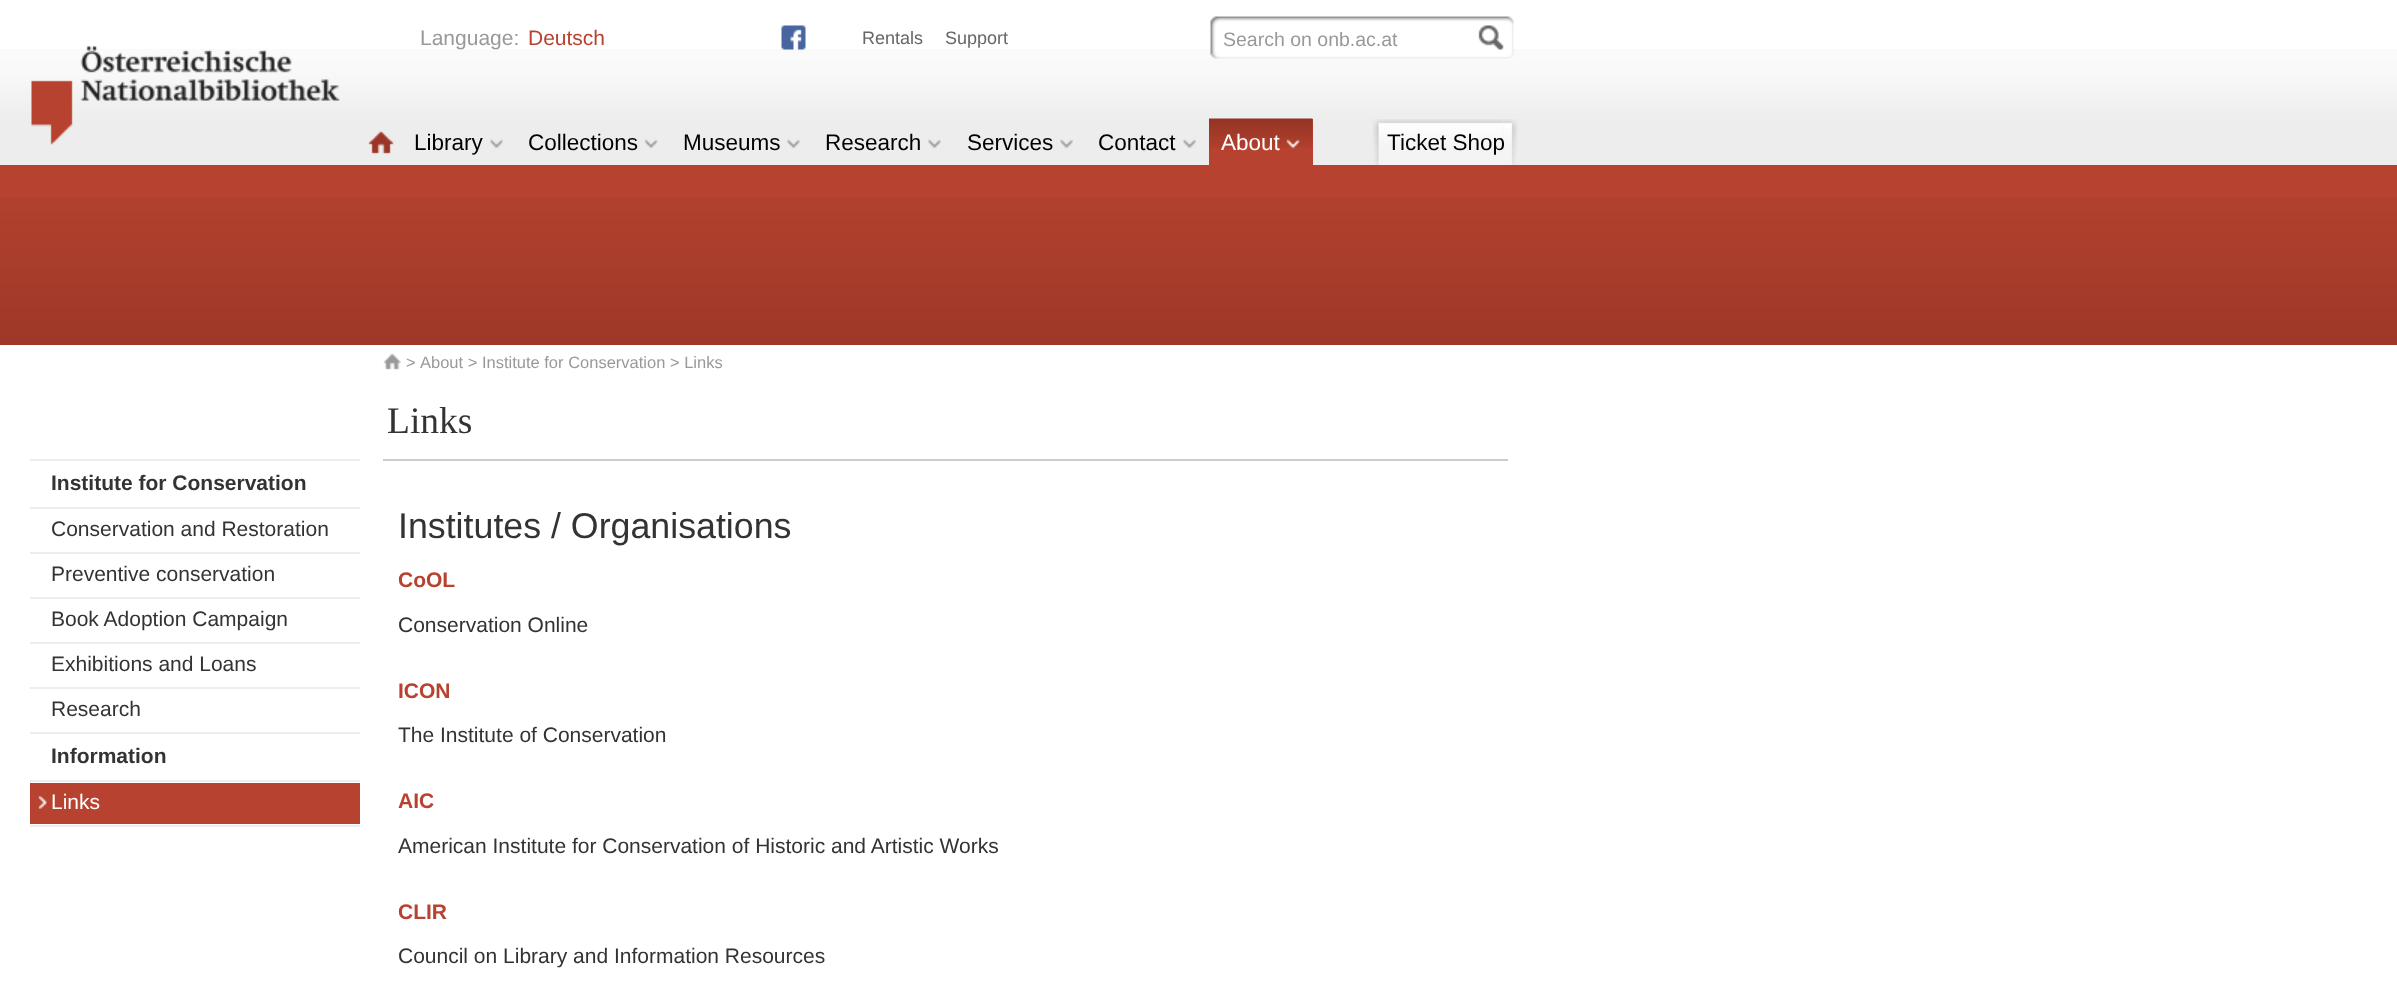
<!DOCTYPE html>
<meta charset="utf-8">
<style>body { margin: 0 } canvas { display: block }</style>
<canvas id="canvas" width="2397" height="1001"></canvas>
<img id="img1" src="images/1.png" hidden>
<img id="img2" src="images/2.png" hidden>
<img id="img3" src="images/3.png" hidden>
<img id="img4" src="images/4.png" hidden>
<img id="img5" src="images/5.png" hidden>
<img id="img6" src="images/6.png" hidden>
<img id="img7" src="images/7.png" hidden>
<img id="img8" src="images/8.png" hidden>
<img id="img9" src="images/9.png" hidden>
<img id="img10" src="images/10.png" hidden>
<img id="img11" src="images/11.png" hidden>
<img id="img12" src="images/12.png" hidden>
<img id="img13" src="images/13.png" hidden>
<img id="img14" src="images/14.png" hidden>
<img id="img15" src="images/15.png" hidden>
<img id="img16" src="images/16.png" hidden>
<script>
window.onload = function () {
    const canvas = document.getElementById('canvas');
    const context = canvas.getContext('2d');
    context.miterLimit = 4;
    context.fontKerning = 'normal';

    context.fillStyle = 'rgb(255, 255, 255)';
    context.fillRect(0, 0, 2397, 1001);
    context.drawImage(document.getElementById('img1'), 0, 49, 2397, 116);
    context.drawImage(document.getElementById('img2'), 781, 25, 25, 25);
    context.drawImage(document.getElementById('img3'), 1210, 16, 304, 43);
    context.drawImage(document.getElementById('img4'), 1478, 25, 26, 25);
    context.drawImage(document.getElementById('img5'), 31, 46, 309, 99);
    context.drawImage(document.getElementById('img6'), 368, 131, 26, 23);
    context.drawImage(document.getElementById('img7'), 490, 139, 13, 10);
    context.drawImage(document.getElementById('img8'), 644, 139, 14, 10);
    context.drawImage(document.getElementById('img9'), 787, 139, 13, 10);
    context.drawImage(document.getElementById('img9'), 928, 139, 13, 10);
    context.drawImage(document.getElementById('img7'), 1060, 139, 13, 10);
    context.drawImage(document.getElementById('img7'), 1183, 139, 13, 10);
    context.fillStyle = 'rgb(183, 66, 47)';
    context.fillRect(1209, 119, 104, 46);
    context.drawImage(document.getElementById('img10'), 1209, 118, 104, 30);
    context.drawImage(document.getElementById('img11'), 1286, 139, 14, 10);
    context.drawImage(document.getElementById('img12'), 1372, 119, 131, 46);
    context.drawImage(document.getElementById('img13'), 1503, 119, 15, 46);
    context.fillRect(0, 165, 2397, 32);
    context.drawImage(document.getElementById('img14'), 0, 197, 2397, 148);
    context.drawImage(document.getElementById('img15'), 383, 353, 18, 17);
    context.fillStyle = 'rgb(237, 237, 237)';
    context.fillRect(30, 459, 330, 2);
    context.fillRect(30, 507, 330, 2);
    context.fillRect(30, 552, 330, 2);
    context.fillRect(30, 597, 330, 2);
    context.fillRect(30, 642, 330, 2);
    context.fillRect(30, 687, 330, 2);
    context.fillRect(30, 732, 330, 2);
    context.fillRect(30, 780, 330, 2);
    context.fillRect(30, 825, 330, 2);
    context.fillStyle = 'rgb(183, 66, 47)';
    context.fillRect(30, 783, 330, 41);
    context.drawImage(document.getElementById('img16'), 38, 796, 9, 13);
    context.fillStyle = 'rgb(204, 204, 204)';
    context.fillRect(383, 459, 1125, 2);
    context.font = '21px Liberation Sans';
    context.fillStyle = 'rgb(153, 153, 153)';
    context.fillText('Language:', 420, 45);
    context.fillStyle = 'rgb(183, 66, 47)';
    context.fillText('Deutsch', 528, 45);
    context.font = '18px Liberation Sans';
    context.fillStyle = 'rgb(102, 102, 102)';
    context.fillText('Rentals', 862, 44);
    context.fillText('Support', 945, 44);
    context.font = '19.5px Liberation Sans';
    context.fillStyle = 'rgb(153, 153, 153)';
    context.fillText('Search on onb.ac.at', 1223, 46);
    context.font = '22.5px Liberation Sans';
    context.fillStyle = 'rgb(0, 0, 0)';
    context.fillText('Library', 414, 150);
    context.fillText('Collections', 528, 150);
    context.fillText('Museums', 683, 150);
    context.fillText('Research', 825, 150);
    context.fillText('Services', 967, 150);
    context.fillText('Contact', 1098, 150);
    context.fillStyle = 'rgb(255, 255, 255)';
    context.fillText('About', 1221, 150);
    context.fillStyle = 'rgb(0, 0, 0)';
    context.fillText('Ticket Shop', 1387, 150);
    context.font = '16.5px Liberation Sans';
    context.fillStyle = 'rgb(153, 153, 153)';
    context.fillText('>', 406, 368);
    context.fillText('About > Institute for Conservation > Links', 420, 368);
    context.font = 'bold 21px Liberation Sans';
    context.fillStyle = 'rgb(51, 51, 51)';
    context.fillText('Institute for Conservation', 51, 490);
    context.font = '21px Liberation Sans';
    context.fillText('Conservation and Restoration', 51, 536);
    context.fillText('Preventive conservation', 51, 581);
    context.fillText('Book Adoption Campaign', 51, 626);
    context.fillText('Exhibitions and Loans', 51, 671);
    context.fillText('Research', 51, 716);
    context.font = 'bold 21px Liberation Sans';
    context.fillText('Information', 51, 763);
    context.font = '21px Liberation Sans';
    context.fillStyle = 'rgb(255, 255, 255)';
    context.fillText('Links', 51, 809);
    context.font = '37.5px Liberation Serif';
    context.fillStyle = 'rgb(51, 51, 51)';
    context.fillText('Links', 387, 433);
    context.font = '35.75px Liberation Sans';
    context.fillText('Institutes / Organisations', 398, 538);
    context.font = 'bold 21px Liberation Sans';
    context.fillStyle = 'rgb(183, 66, 47)';
    context.fillText('CoOL', 398, 587);
    context.font = '21px Liberation Sans';
    context.fillStyle = 'rgb(51, 51, 51)';
    context.fillText('Conservation Online', 398, 632);
    context.font = 'bold 21px Liberation Sans';
    context.fillStyle = 'rgb(183, 66, 47)';
    context.fillText('ICON', 398, 698);
    context.font = '21px Liberation Sans';
    context.fillStyle = 'rgb(51, 51, 51)';
    context.fillText('The Institute of Conservation', 398, 742);
    context.font = 'bold 21px Liberation Sans';
    context.fillStyle = 'rgb(183, 66, 47)';
    context.fillText('AIC', 398, 808);
    context.font = '21px Liberation Sans';
    context.fillStyle = 'rgb(51, 51, 51)';
    context.fillText('American Institute for Conservation of Historic and Artistic Works', 398, 853);
    context.font = 'bold 21px Liberation Sans';
    context.fillStyle = 'rgb(183, 66, 47)';
    context.fillText('CLIR', 398, 919);
    context.font = '21px Liberation Sans';
    context.fillStyle = 'rgb(51, 51, 51)';
    context.fillText('Council on Library and Information Resources', 398, 963);
};
</script>
